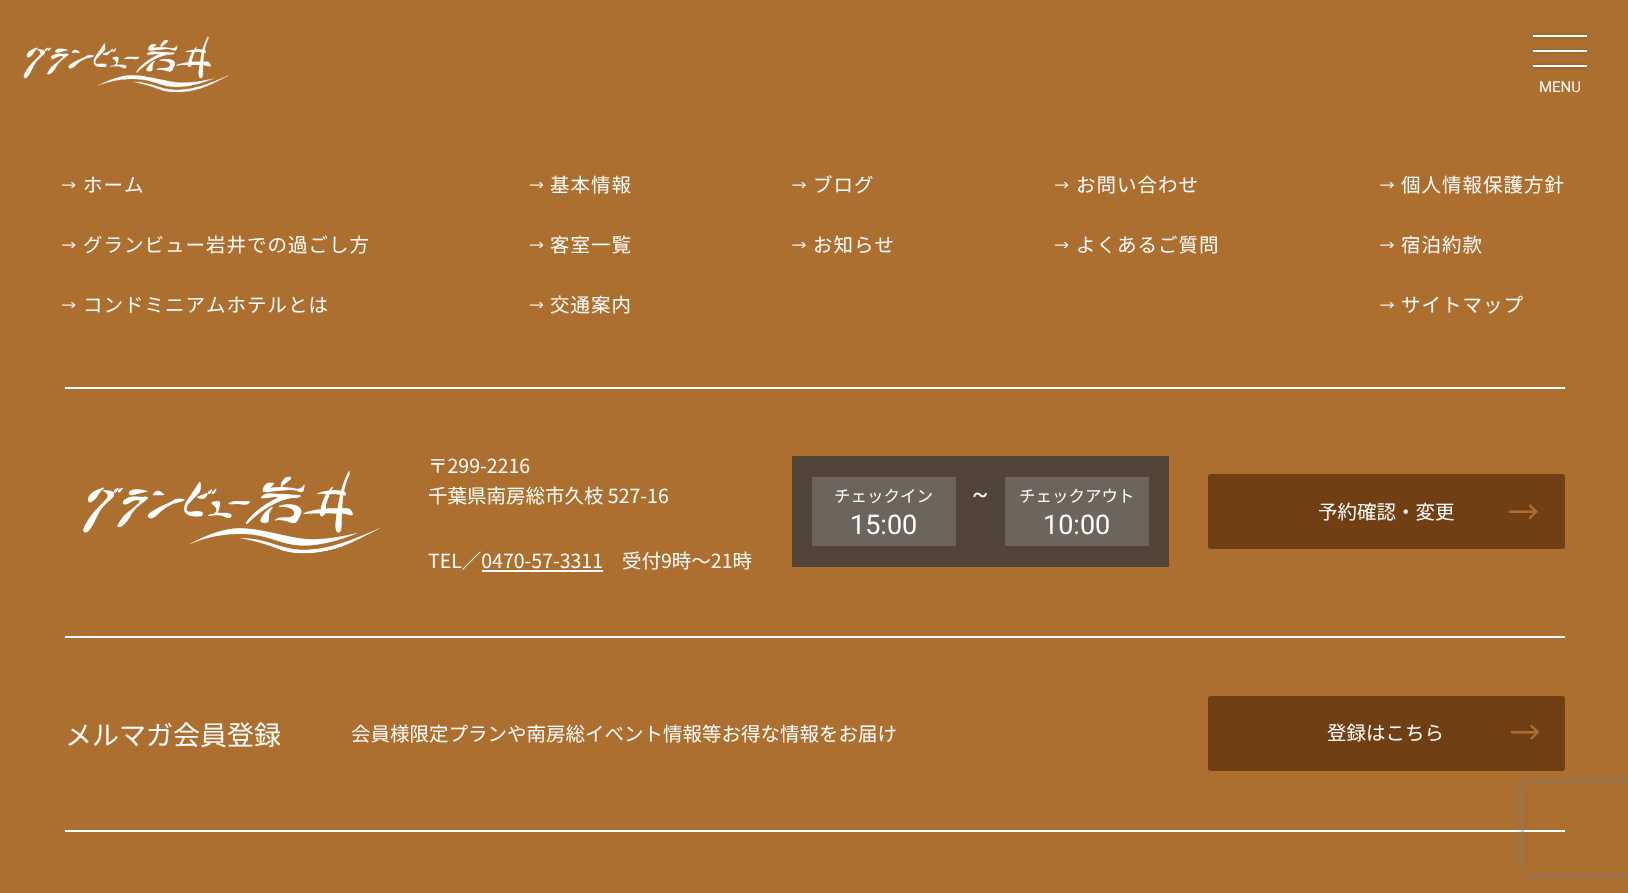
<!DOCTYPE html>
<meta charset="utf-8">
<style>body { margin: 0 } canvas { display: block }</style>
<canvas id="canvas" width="1628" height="893"></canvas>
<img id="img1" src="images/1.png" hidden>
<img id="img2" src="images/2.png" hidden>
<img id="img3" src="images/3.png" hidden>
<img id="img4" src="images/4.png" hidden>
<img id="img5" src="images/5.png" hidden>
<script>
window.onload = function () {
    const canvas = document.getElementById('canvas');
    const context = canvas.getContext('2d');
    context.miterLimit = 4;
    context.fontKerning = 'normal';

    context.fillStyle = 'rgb(172, 111, 48)';
    context.fillRect(0, 0, 1628, 893);
    context.drawImage(document.getElementById('img1'), 23, 36, 207, 57);
    context.fillStyle = 'rgba(44, 65, 66, 0.49)';
    context.filter = 'blur(1.5px)';
    context.beginPath();
    context.rect(1533, 50, 54, 2);
    context.fill();
    context.filter = 'none';
    context.fillStyle = 'rgb(255, 255, 255)';
    context.fillRect(1533, 50, 54, 2);
    context.fillStyle = 'rgba(44, 65, 66, 0.49)';
    context.filter = 'blur(1.5px)';
    context.beginPath();
    context.rect(1533, 35, 54, 2);
    context.fill();
    context.filter = 'none';
    context.fillStyle = 'rgb(255, 255, 255)';
    context.fillRect(1533, 35, 54, 2);
    context.fillStyle = 'rgba(44, 65, 66, 0.49)';
    context.filter = 'blur(1.5px)';
    context.beginPath();
    context.rect(1533, 65, 54, 2);
    context.fill();
    context.filter = 'none';
    context.fillStyle = 'rgb(255, 255, 255)';
    context.fillRect(1533, 65, 54, 2);
    context.fillRect(65, 387, 1500, 2);
    context.drawImage(document.getElementById('img2'), 62, 182, 14, 6);
    context.drawImage(document.getElementById('img2'), 62, 242, 14, 6);
    context.drawImage(document.getElementById('img2'), 62, 302, 14, 6);
    context.drawImage(document.getElementById('img3'), 530, 182, 13, 6);
    context.drawImage(document.getElementById('img3'), 530, 242, 13, 6);
    context.drawImage(document.getElementById('img3'), 530, 302, 13, 6);
    context.drawImage(document.getElementById('img4'), 792, 182, 14, 6);
    context.drawImage(document.getElementById('img4'), 792, 242, 14, 6);
    context.drawImage(document.getElementById('img2'), 1055, 182, 14, 6);
    context.drawImage(document.getElementById('img2'), 1055, 242, 14, 6);
    context.drawImage(document.getElementById('img4'), 1380, 182, 14, 6);
    context.drawImage(document.getElementById('img4'), 1380, 242, 14, 6);
    context.drawImage(document.getElementById('img4'), 1380, 302, 14, 6);
    context.fillRect(65, 636, 1500, 2);
    context.drawImage(document.getElementById('img5'), 83, 471, 297, 83);
    context.fillStyle = 'rgb(253, 253, 253)';
    context.fillRect(482, 570, 121, 2);
    context.fillStyle = 'rgb(82, 68, 56)';
    context.fillRect(792, 456, 377, 111);
    context.fillStyle = 'rgb(109, 100, 92)';
    context.fillRect(812, 477, 144, 69);
    context.fillRect(1005, 477, 144, 69);
    context.fillStyle = 'rgb(113, 63, 20)';
    context.beginPath();
    context.roundRect(1208, 474, 357, 75, 3);
    context.fill();
    context.fillStyle = 'rgb(172, 111, 48)';
    context.beginPath();
    context.moveTo(1530, 504);
    context.lineTo(1528.5, 506);
    context.lineTo(1533.5, 510.5);
    context.lineTo(1509, 510.5);
    context.lineTo(1509, 513);
    context.lineTo(1533.5, 513);
    context.lineTo(1528.5, 517.5);
    context.lineTo(1530, 519.5);
    context.lineTo(1538, 511.5);
    context.closePath();
    context.fill();
    context.fillStyle = 'rgb(255, 255, 255)';
    context.fillRect(65, 830, 1500, 2);
    context.fillStyle = 'rgb(113, 63, 20)';
    context.beginPath();
    context.roundRect(1208, 696, 357, 75, 3);
    context.fill();
    context.save();
    context.beginPath();
    context.rect(1511, 725, 28, 16);
    context.clip();
    context.fillStyle = 'rgb(172, 111, 48)';
    context.beginPath();
    context.moveTo(1531.5, 724.5);
    context.lineTo(1530, 726.5);
    context.lineTo(1535, 731);
    context.lineTo(1510.5, 731);
    context.lineTo(1510.5, 733.5);
    context.lineTo(1535, 733.5);
    context.lineTo(1530, 738);
    context.lineTo(1531.5, 740);
    context.lineTo(1539.5, 732);
    context.closePath();
    context.fill();
    context.restore();
    context.save();
    context.beginPath();
    context.moveTo(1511, 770);
    context.lineTo(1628, 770);
    context.lineTo(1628, 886);
    context.lineTo(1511, 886);
    context.closePath();
    context.moveTo(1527, 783);
    context.lineTo(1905, 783);
    context.bezierCurveTo(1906.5, 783, 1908, 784.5, 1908, 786);
    context.lineTo(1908, 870);
    context.bezierCurveTo(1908, 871.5, 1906.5, 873, 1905, 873);
    context.lineTo(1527, 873);
    context.bezierCurveTo(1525.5, 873, 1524, 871.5, 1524, 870);
    context.lineTo(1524, 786);
    context.bezierCurveTo(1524, 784.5, 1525.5, 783, 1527, 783);
    context.closePath();
    context.clip('evenodd');
    context.fillStyle = 'rgb(128, 128, 128)';
    context.filter = 'blur(4px)';
    context.beginPath();
    context.roundRect(1524, 783, 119, 90, 3);
    context.fill();
    context.filter = 'none';
    context.restore();
    context.font = '15px Roboto';
    context.fillStyle = 'rgb(253, 253, 253)';
    context.fillText('MENU', 1539, 92);
    context.letterSpacing = '1px';
    context.font = '19.5px Noto Sans JP';
    context.fillText('ホーム', 83, 192);
    context.fillText('グランビュー岩井での過ごし方', 83, 252);
    context.fillText('コンドミニアムホテルとは', 83, 312);
    context.fillText('基本情報', 550, 192);
    context.fillText('客室一覧', 550, 252);
    context.fillText('交通案内', 550, 312);
    context.fillText('ブログ', 813, 192);
    context.fillText('お知らせ', 813, 252);
    context.fillText('お問い合わせ', 1076, 192);
    context.fillText('よくあるご質問', 1076, 252);
    context.fillText('個人情報保護方針', 1401, 192);
    context.fillText('宿泊約款', 1401, 252);
    context.fillText('サイトマップ', 1401, 312);
    context.letterSpacing = '0px';
    context.fillText('〒299-2216', 428, 473);
    context.fillText('千葉県南房総市久枝 527-16', 428, 503);
    context.fillText('TEL／0470-57-3311', 428, 568);
    context.fillText('受付9時～21時', 622, 568);
    context.font = '16.5px Noto Sans JP';
    context.fillText('チェックイン', 834, 502);
    context.font = '27px Roboto';
    context.fillText('15:00', 850, 534);
    context.font = '24px Roboto';
    context.fillText('~', 972, 502);
    context.font = '16.5px Noto Sans JP';
    context.fillText('チェックアウト', 1019, 502);
    context.font = '27px Roboto';
    context.fillText('10:00', 1043, 534);
    context.font = '19.5px Noto Sans JP';
    context.fillText('予約確認・変更', 1318, 519);
    context.font = '27px Noto Sans JP';
    context.fillText('メルマガ会員登録', 65, 745);
    context.font = '19.5px Noto Sans JP';
    context.fillText('会員様限定プランや南房総イベント情報等お得な情報をお届け', 351, 741);
    context.fillText('登録はこちら', 1327, 740);
};
</script>
